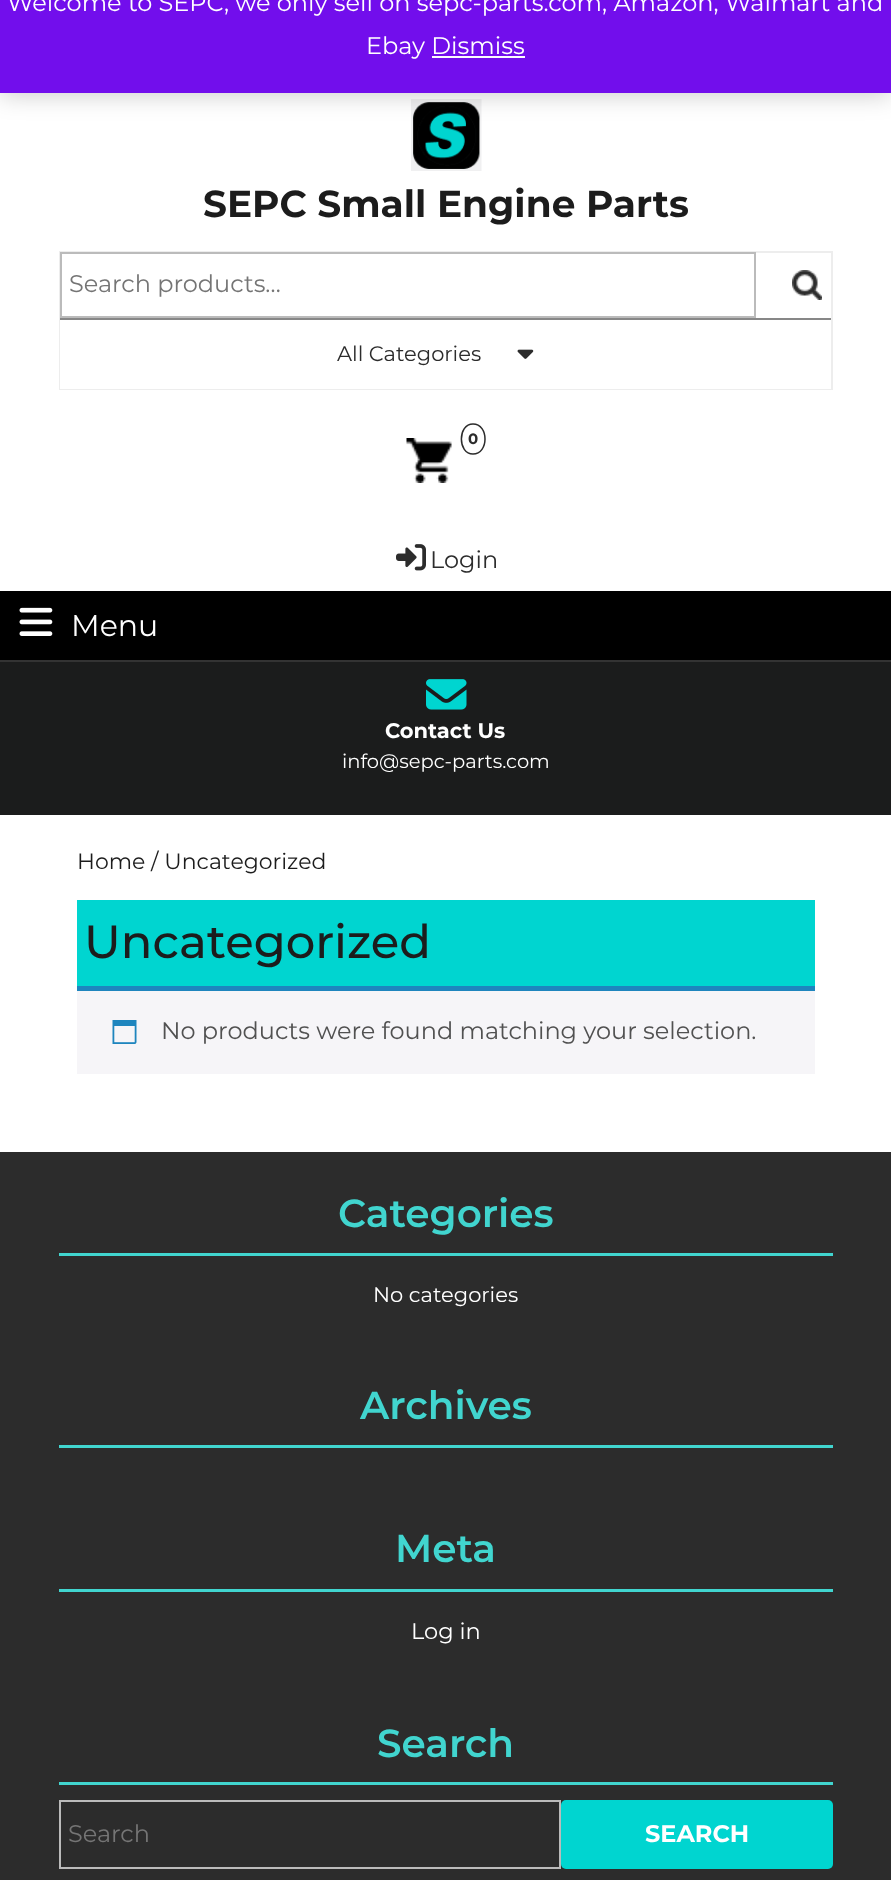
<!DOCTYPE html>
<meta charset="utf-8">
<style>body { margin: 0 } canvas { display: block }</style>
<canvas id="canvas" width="891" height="1880"></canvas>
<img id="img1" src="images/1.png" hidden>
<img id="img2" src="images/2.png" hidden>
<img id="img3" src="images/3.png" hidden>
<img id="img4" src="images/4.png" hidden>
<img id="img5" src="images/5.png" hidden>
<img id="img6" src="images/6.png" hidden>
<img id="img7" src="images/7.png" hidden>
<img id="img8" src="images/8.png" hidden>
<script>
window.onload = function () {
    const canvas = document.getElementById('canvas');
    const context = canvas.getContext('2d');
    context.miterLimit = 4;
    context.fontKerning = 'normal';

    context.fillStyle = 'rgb(255, 255, 255)';
    context.fillRect(0, 0, 891, 1880);
    context.drawImage(document.getElementById('img1'), 411, 99, 71, 72);
    context.fillStyle = 'rgba(0, 0, 0, 0.2)';
    context.filter = 'blur(12px)';
    context.beginPath();
    context.rect(0, -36, 891, 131);
    context.fill();
    context.filter = 'none';
    context.fillStyle = 'rgb(114, 14, 236)';
    context.fillRect(0, 0, 891, 93);
    context.strokeStyle = 'rgb(237, 237, 237)';
    context.lineWidth = 2;
    context.strokeRect(60, 252, 772, 137);
    context.strokeStyle = 'rgb(187, 187, 187)';
    context.strokeRect(61, 253, 694, 64);
    context.drawImage(document.getElementById('img2'), 792, 270, 30, 30);
    context.fillStyle = 'rgb(255, 255, 255)';
    context.fillRect(60, 320, 771, 69);
    context.fillStyle = 'rgb(135, 135, 135)';
    context.fillRect(60, 318, 771, 2);
    context.drawImage(document.getElementById('img3'), 517, 349, 17, 10);
    context.drawImage(document.getElementById('img4'), 406, 438, 46, 45);
    context.beginPath();
    context.moveTo(473, 424);
    context.bezierCurveTo(489, 424, 489, 454, 473, 454);
    context.bezierCurveTo(457.5, 454, 457.5, 424, 473, 424);
    context.closePath();
    context.strokeStyle = 'rgb(44, 44, 44)';
    context.lineWidth = 1.5;
    context.stroke();
    context.drawImage(document.getElementById('img5'), 396, 544, 30, 27);
    context.fillStyle = 'rgb(0, 0, 0)';
    context.fillRect(0, 591, 891, 69);
    context.fillStyle = 'rgb(51, 51, 51)';
    context.fillRect(0, 660, 891, 2);
    context.drawImage(document.getElementById('img6'), 19, 607, 34, 29);
    context.fillStyle = 'rgb(27, 28, 28)';
    context.fillRect(0, 662, 891, 153);
    context.drawImage(document.getElementById('img7'), 426, 679, 41, 31);
    context.fillStyle = 'rgb(0, 213, 208)';
    context.fillRect(77, 900, 738, 86);
    context.fillStyle = 'rgb(246, 245, 248)';
    context.fillRect(77, 991, 738, 83);
    context.fillStyle = 'rgb(30, 133, 190)';
    context.fillRect(77, 986, 738, 5);
    context.drawImage(document.getElementById('img8'), 112, 1020, 25, 24);
    context.fillStyle = 'rgb(44, 44, 44)';
    context.fillRect(0, 1152, 891, 728);
    context.fillStyle = 'rgb(65, 213, 207)';
    context.fillRect(59, 1253, 774, 3);
    context.fillRect(59, 1445, 774, 3);
    context.fillRect(59, 1589, 774, 3);
    context.fillRect(59, 1782, 774, 3);
    context.strokeStyle = 'rgb(187, 187, 187)';
    context.lineWidth = 2;
    context.strokeRect(60, 1801, 500, 67);
    context.fillStyle = 'rgb(0, 213, 208)';
    context.beginPath();
    context.roundRect(561, 1800, 272, 69, 5);
    context.fill();
    context.font = '24px Montserrat';
    context.fillStyle = 'rgb(255, 255, 255)';
    context.fillText('Welcome to SEPC, we only sell on sepc-parts.com, Amazon, Walmart and', 7, 11);
    context.fillText('Ebay Dismiss', 366, 54);
    context.fillStyle = 'rgb(252, 251, 254)';
    context.fillRect(432, 56, 93, 2);
    context.font = 'bold 37.5px Montserrat';
    context.fillStyle = 'rgb(28, 28, 28)';
    context.fillText('SEPC Small Engine Parts', 203, 217);
    context.font = '24px Montserrat';
    context.fillStyle = 'rgb(117, 117, 117)';
    context.fillText('Search products…', 69, 292);
    context.font = '21px Montserrat';
    context.fillStyle = 'rgb(44, 44, 44)';
    context.fillText('All Categories', 337, 361);
    context.font = 'bold 15px Montserrat';
    context.fillText('0', 468, 444);
    context.font = '24px Montserrat';
    context.fillText('Login', 430, 568);
    context.font = '30px Montserrat';
    context.fillStyle = 'rgb(255, 255, 255)';
    context.fillText('Menu', 71, 636);
    context.font = 'bold 21px Montserrat';
    context.fillText('Contact Us', 385, 738);
    context.font = '19.5px Montserrat';
    context.fillText('info@sepc-parts.com', 342, 768);
    context.font = '22px Montserrat';
    context.fillStyle = 'rgb(28, 28, 28)';
    context.fillText('Home / Uncategorized', 77, 869);
    context.font = '500 46.5px Montserrat';
    context.fillText('Uncategorized', 84, 958);
    context.font = '24px Montserrat';
    context.fillStyle = 'rgb(81, 81, 81)';
    context.fillText('No products were found matching your selection.', 161, 1039);
    context.font = '600 39px Montserrat';
    context.fillStyle = 'rgb(65, 213, 207)';
    context.fillText('Categories', 338, 1227);
    context.font = '21px Montserrat';
    context.fillStyle = 'rgb(255, 255, 255)';
    context.fillText('No categories', 373, 1302);
    context.font = '600 39px Montserrat';
    context.fillStyle = 'rgb(65, 213, 207)';
    context.fillText('Archives', 360, 1419);
    context.fillText('Meta', 395, 1562);
    context.font = '22.5px Montserrat';
    context.fillStyle = 'rgb(255, 255, 255)';
    context.fillText('Log in', 411, 1639);
    context.font = '600 39px Montserrat';
    context.fillStyle = 'rgb(65, 213, 207)';
    context.fillText('Search', 377, 1757);
    context.font = '24px Montserrat';
    context.fillStyle = 'rgb(117, 117, 117)';
    context.fillText('Search', 68, 1842);
    context.font = 'bold 24px Montserrat';
    context.fillStyle = 'rgb(255, 255, 255)';
    context.fillText('SEARCH', 645, 1842);
};
</script>
